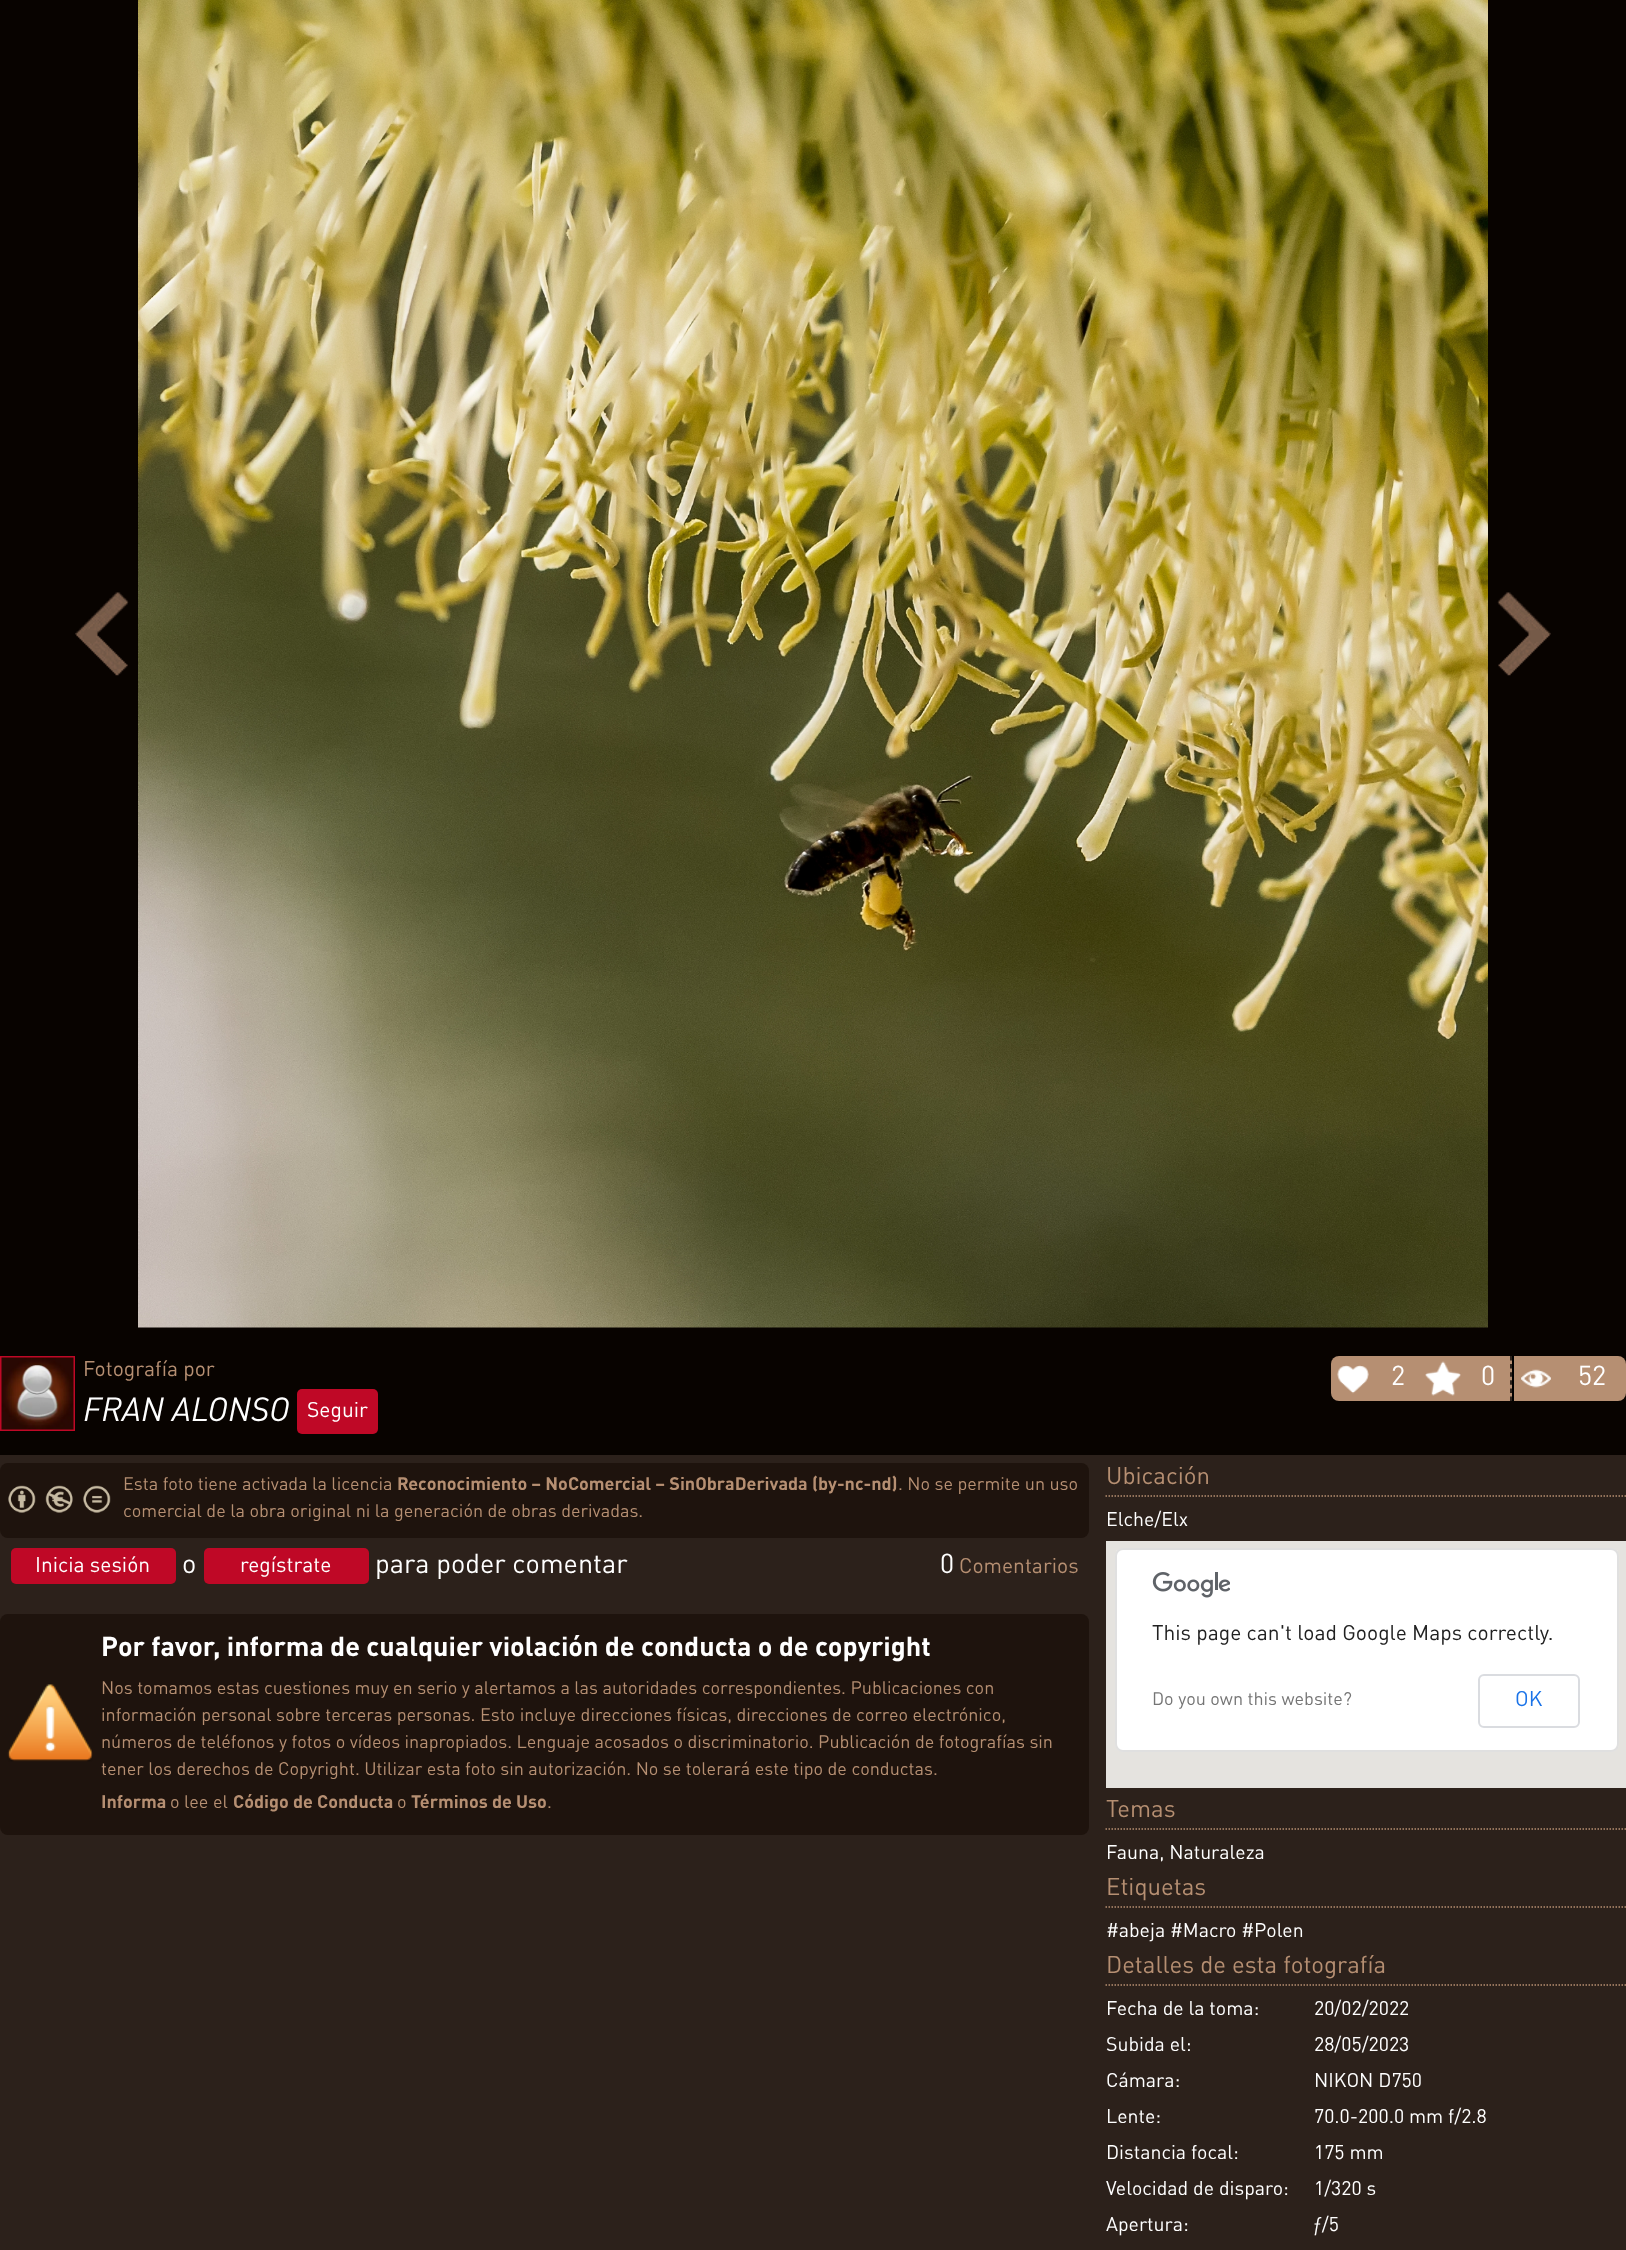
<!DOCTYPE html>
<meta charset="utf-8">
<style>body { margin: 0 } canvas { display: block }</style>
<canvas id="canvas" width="1626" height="2250"></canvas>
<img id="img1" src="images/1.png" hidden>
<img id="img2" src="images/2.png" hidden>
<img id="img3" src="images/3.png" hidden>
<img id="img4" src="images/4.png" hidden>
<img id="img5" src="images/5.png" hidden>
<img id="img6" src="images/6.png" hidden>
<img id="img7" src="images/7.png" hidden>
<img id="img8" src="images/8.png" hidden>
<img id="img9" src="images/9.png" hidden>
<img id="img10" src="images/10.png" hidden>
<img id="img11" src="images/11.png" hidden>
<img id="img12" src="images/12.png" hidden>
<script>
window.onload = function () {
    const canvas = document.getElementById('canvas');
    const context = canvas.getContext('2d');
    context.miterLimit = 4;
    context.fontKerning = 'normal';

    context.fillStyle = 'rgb(8, 3, 0)';
    context.fillRect(0, 0, 1626, 2250);
    context.drawImage(document.getElementById('img1'), 75, 592, 54, 84);
    context.drawImage(document.getElementById('img2'), 138, 0, 1350, 1328);
    context.drawImage(document.getElementById('img3'), 1497, 592, 54, 84);
    context.strokeStyle = 'rgb(191, 8, 38)';
    context.lineWidth = 2;
    context.strokeRect(1, 1357, 73, 73);
    context.drawImage(document.getElementById('img4'), 1, 1357, 73, 73);
    context.fillStyle = 'rgb(191, 8, 38)';
    context.beginPath();
    context.roundRect(297, 1389, 81, 45, 5);
    context.fill();
    context.fillStyle = 'rgb(182, 143, 114)';
    context.beginPath();
    context.roundRect(1331, 1356, 90, 45, [8, 0, 0, 8]);
    context.fill();
    context.drawImage(document.getElementById('img5'), 1337, 1365, 32, 29);
    context.fillRect(1421, 1356, 91, 45);
    context.beginPath();
    context.moveTo(1511, 1356);
    context.lineTo(1511, 1401);
    context.strokeStyle = 'rgb(0, 0, 0)';
    context.lineWidth = 1.5;
    context.setLineDash([4.5, 3.6]);
    context.stroke();
    context.drawImage(document.getElementById('img6'), 1425, 1361, 36, 35);
    context.beginPath();
    context.roundRect(1512, 1356, 114, 45, [0, 8, 8, 0]);
    context.fill();
    context.fillStyle = 'rgb(0, 0, 0)';
    context.fillRect(1512, 1356, 2, 45);
    context.drawImage(document.getElementById('img7'), 1521, 1369, 30, 19);
    context.fillStyle = 'rgb(44, 33, 27)';
    context.fillRect(0, 1455, 1626, 795);
    context.fillStyle = 'rgb(30, 19, 13)';
    context.beginPath();
    context.roundRect(0, 1463, 1089, 75, 8);
    context.fill();
    context.drawImage(document.getElementById('img8'), 8, 1485, 28, 28);
    context.drawImage(document.getElementById('img9'), 45, 1485, 28, 28);
    context.drawImage(document.getElementById('img10'), 83, 1485, 28, 28);
    context.fillStyle = 'rgb(191, 8, 38)';
    context.beginPath();
    context.roundRect(11, 1548, 165, 36, 5);
    context.fill();
    context.beginPath();
    context.roundRect(204, 1548, 165, 36, 5);
    context.fill();
    context.fillStyle = 'rgb(30, 19, 13)';
    context.beginPath();
    context.roundRect(0, 1614, 1089, 221, 8);
    context.fill();
    context.drawImage(document.getElementById('img11'), 7, 1684, 86, 78);
    context.beginPath();
    context.moveTo(1105.5, 1496);
    context.lineTo(1626, 1496);
    context.strokeStyle = 'rgb(182, 143, 114)';
    context.setLineDash([1.5, 1.5]);
    context.stroke();
    context.fillStyle = 'rgb(229, 227, 223)';
    context.fillRect(1106, 1541, 520, 247);
    context.fillStyle = 'rgb(255, 255, 255)';
    context.beginPath();
    context.roundRect(1115, 1548, 504, 204, 8);
    context.fill();
    context.beginPath();
    context.roundRect(1116, 1549, 502, 202, 7);
    context.strokeStyle = 'rgba(0, 0, 0, 0.12)';
    context.lineWidth = 2;
    context.setLineDash([]);
    context.stroke();
    context.drawImage(document.getElementById('img12'), 1152, 1572, 78, 26);
    context.beginPath();
    context.roundRect(1479, 1675, 100, 52, 5);
    context.strokeStyle = 'rgb(218, 220, 224)';
    context.stroke();
    context.beginPath();
    context.moveTo(1105.5, 1829);
    context.lineTo(1626, 1829);
    context.strokeStyle = 'rgb(182, 143, 114)';
    context.lineWidth = 1.5;
    context.setLineDash([1.5, 1.5]);
    context.stroke();
    context.beginPath();
    context.moveTo(1105.5, 1907);
    context.lineTo(1626, 1907);
    context.stroke();
    context.beginPath();
    context.moveTo(1105.5, 1985);
    context.lineTo(1626, 1985);
    context.stroke();
    context.font = '21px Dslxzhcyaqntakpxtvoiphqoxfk';
    context.fillStyle = 'rgb(182, 143, 114)';
    context.fillText('Fotografía por', 83, 1376);
    context.font = 'italic 33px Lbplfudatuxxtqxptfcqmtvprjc';
    context.fillStyle = 'rgb(255, 255, 255)';
    context.fillText('FRAN ALONSO', 83, 1421);
    context.font = '21px Dslxzhcyaqntakpxtvoiphqoxfk';
    context.fillText('Seguir', 307, 1417);
    context.font = '27px Dslxzhcyaqntakpxtvoiphqoxfk';
    context.fillText('2', 1391, 1385);
    context.fillText('0', 1481, 1385);
    context.fillText('52', 1578, 1385);
    context.font = '18px Dslxzhcyaqntakpxtvoiphqoxfk';
    context.fillStyle = 'rgb(182, 143, 114)';
    context.fillText('Esta foto tiene activada la licencia', 123, 1490);
    context.font = 'bold 18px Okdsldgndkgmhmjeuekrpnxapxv';
    context.fillText('Reconocimiento – NoComercial – SinObraDerivada (by-nc-nd)', 397, 1490);
    context.font = '18px Dslxzhcyaqntakpxtvoiphqoxfk';
    context.fillText('. No se permite un uso', 898, 1490);
    context.fillText('comercial de la obra original ni la generación de obras derivadas.', 123, 1517);
    context.font = '21px Dslxzhcyaqntakpxtvoiphqoxfk';
    context.fillStyle = 'rgb(255, 255, 255)';
    context.fillText('Inicia sesión', 35, 1572);
    context.font = '27px Dslxzhcyaqntakpxtvoiphqoxfk';
    context.fillText('o', 182, 1573);
    context.font = '21px Dslxzhcyaqntakpxtvoiphqoxfk';
    context.fillText('regístrate', 240, 1572);
    context.font = '27px Dslxzhcyaqntakpxtvoiphqoxfk';
    context.fillText('para poder comentar', 375, 1573);
    context.fillText('0', 940, 1573);
    context.font = '21px Dslxzhcyaqntakpxtvoiphqoxfk';
    context.fillStyle = 'rgb(182, 143, 114)';
    context.fillText('Comentarios', 959, 1573);
    context.font = 'bold 27px Okdsldgndkgmhmjeuekrpnxapxv';
    context.fillStyle = 'rgb(255, 255, 255)';
    context.fillText('Por favor, informa de cualquier violación de conducta o de copyright', 101, 1656);
    context.font = '18px Dslxzhcyaqntakpxtvoiphqoxfk';
    context.fillStyle = 'rgb(182, 143, 114)';
    context.fillText('Nos tomamos estas cuestiones muy en serio y alertamos a las autoridades correspondientes. Publicaciones con', 101, 1694);
    context.fillText('información personal sobre terceras personas. Esto incluye direcciones físicas, direcciones de correo electrónico,', 101, 1721);
    context.fillText('números de teléfonos y fotos o vídeos inapropiados. Lenguaje acosados o discriminatorio. Publicación de fotografías sin', 101, 1748);
    context.fillText('tener los derechos de Copyright. Utilizar esta foto sin autorización. No se tolerará este tipo de conductas.', 101, 1775);
    context.font = 'bold 18px Okdsldgndkgmhmjeuekrpnxapxv';
    context.fillText('Informa', 101, 1808);
    context.font = '18px Dslxzhcyaqntakpxtvoiphqoxfk';
    context.fillText('o lee el', 170, 1808);
    context.font = 'bold 18px Okdsldgndkgmhmjeuekrpnxapxv';
    context.fillText('Código de Conducta', 233, 1808);
    context.font = '18px Dslxzhcyaqntakpxtvoiphqoxfk';
    context.fillText('o', 397, 1808);
    context.font = 'bold 18px Okdsldgndkgmhmjeuekrpnxapxv';
    context.fillText('Términos de Uso', 411, 1808);
    context.font = '18px Dslxzhcyaqntakpxtvoiphqoxfk';
    context.fillText('.', 547, 1808);
    context.font = '24px Dslxzhcyaqntakpxtvoiphqoxfk';
    context.fillText('Ubicación', 1106, 1484);
    context.font = '19.5px Dslxzhcyaqntakpxtvoiphqoxfk';
    context.fillStyle = 'rgb(255, 255, 255)';
    context.fillText('Elche/Elx', 1106, 1526);
    context.font = '21px Dslxzhcyaqntakpxtvoiphqoxfk';
    context.fillStyle = 'rgb(33, 33, 33)';
    context.fillText('This page can\'t load Google Maps correctly.', 1152, 1640);
    context.font = '18px Dslxzhcyaqntakpxtvoiphqoxfk';
    context.fillStyle = 'rgb(117, 117, 117)';
    context.fillText('Do you own this website?', 1152, 1705);
    context.font = '21px Dslxzhcyaqntakpxtvoiphqoxfk';
    context.fillStyle = 'rgb(26, 115, 232)';
    context.fillText('OK', 1515, 1706);
    context.font = '24px Dslxzhcyaqntakpxtvoiphqoxfk';
    context.fillStyle = 'rgb(182, 143, 114)';
    context.fillText('Temas', 1106, 1817);
    context.font = '19.5px Dslxzhcyaqntakpxtvoiphqoxfk';
    context.fillStyle = 'rgb(255, 255, 255)';
    context.fillText('Fauna, Naturaleza', 1106, 1859);
    context.font = '24px Dslxzhcyaqntakpxtvoiphqoxfk';
    context.fillStyle = 'rgb(182, 143, 114)';
    context.fillText('Etiquetas', 1106, 1895);
    context.font = '19.5px Dslxzhcyaqntakpxtvoiphqoxfk';
    context.fillStyle = 'rgb(255, 255, 255)';
    context.fillText('#abeja #Macro #Polen', 1106, 1937);
    context.font = '24px Dslxzhcyaqntakpxtvoiphqoxfk';
    context.fillStyle = 'rgb(182, 143, 114)';
    context.fillText('Detalles de esta fotografía', 1106, 1973);
    context.font = '19.5px Dslxzhcyaqntakpxtvoiphqoxfk';
    context.fillStyle = 'rgb(255, 255, 255)';
    context.fillText('Fecha de la toma:', 1106, 2015);
    context.fillText('20/02/2022', 1314, 2015);
    context.fillText('Subida el:', 1106, 2051);
    context.fillText('28/05/2023', 1314, 2051);
    context.fillText('Cámara:', 1106, 2087);
    context.fillText('NIKON D750', 1314, 2087);
    context.fillText('Lente:', 1106, 2123);
    context.fillText('70.0-200.0 mm f/2.8', 1314, 2123);
    context.fillText('Distancia focal:', 1106, 2159);
    context.fillText('175 mm', 1314, 2159);
    context.fillText('Velocidad de disparo:', 1106, 2195);
    context.fillText('1/320 s', 1314, 2195);
    context.fillText('Apertura:', 1106, 2231);
    context.fillText('ƒ/5', 1314, 2231);
};
</script>
